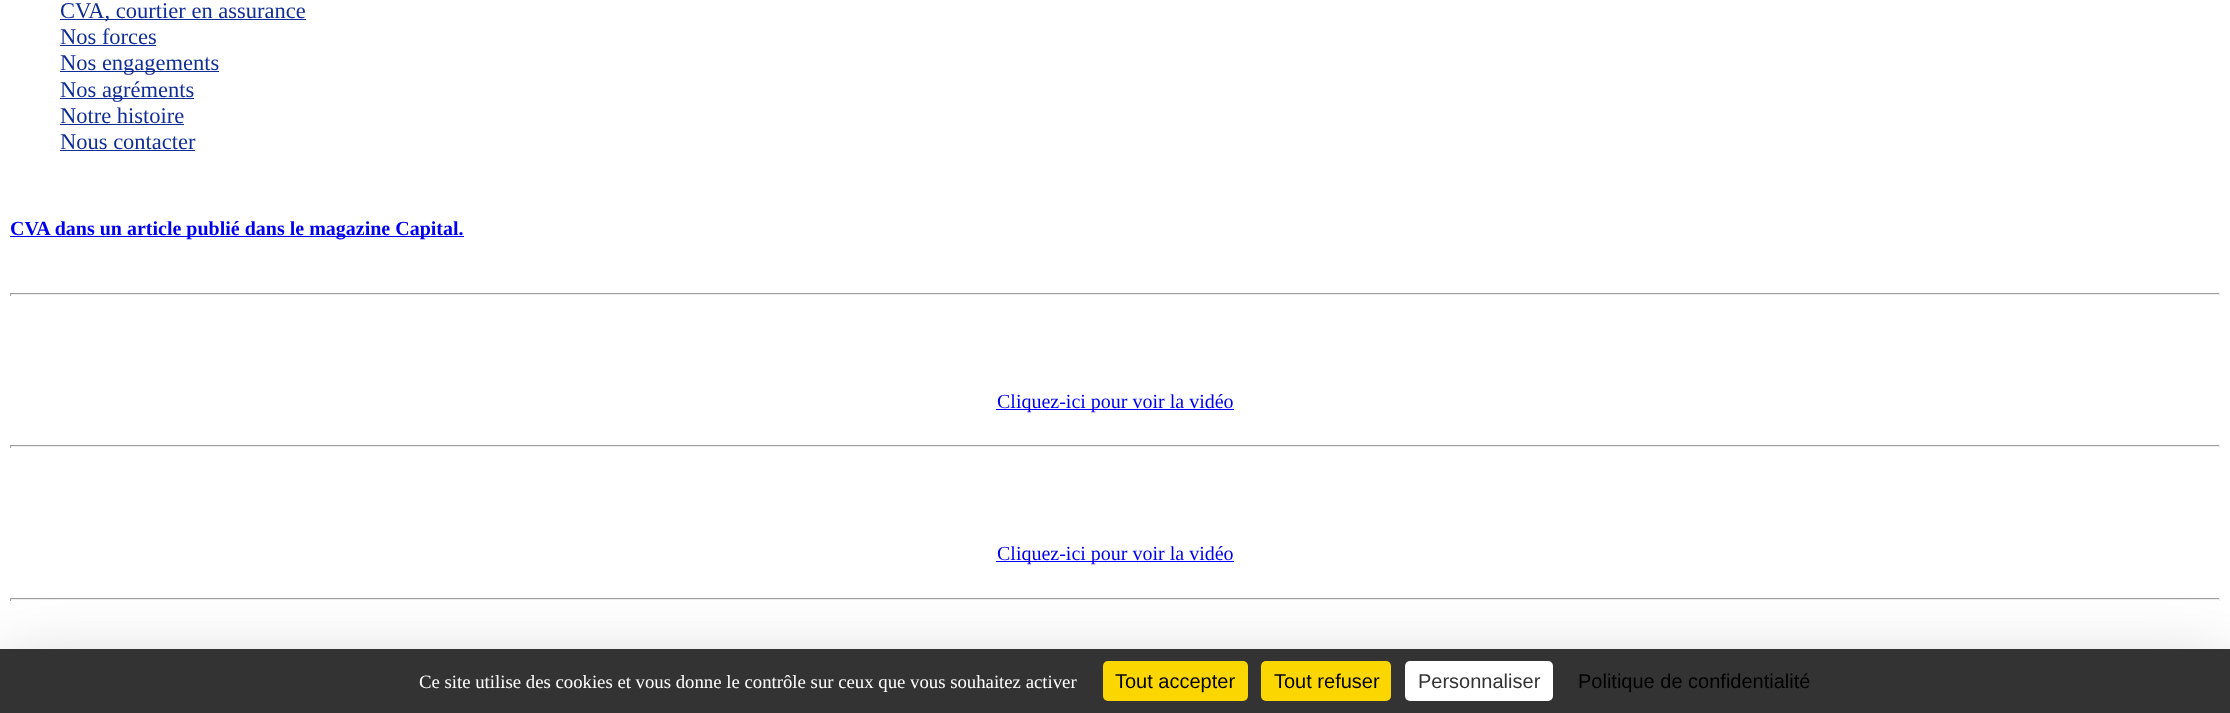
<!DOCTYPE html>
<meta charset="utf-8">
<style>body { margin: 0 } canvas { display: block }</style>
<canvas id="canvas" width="2230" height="713"></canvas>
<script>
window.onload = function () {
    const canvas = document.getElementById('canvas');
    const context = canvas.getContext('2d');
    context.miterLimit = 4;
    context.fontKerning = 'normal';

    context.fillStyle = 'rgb(255, 255, 255)';
    context.fillRect(0, 0, 2230, 713);
    context.fillStyle = 'rgb(16, 45, 149)';
    context.fillRect(60, 19, 246, 1);
    context.fillRect(60, 45, 96, 1);
    context.fillRect(60, 71, 159, 1);
    context.fillRect(60, 98, 134, 1);
    context.fillRect(60, 124, 124, 1);
    context.fillRect(60, 150, 135, 1);
    context.fillStyle = 'rgb(0, 0, 238)';
    context.fillRect(10, 236, 454, 1);
    context.fillStyle = 'rgb(159, 159, 159)';
    context.fillRect(10, 293, 2210, 1);
    context.fillStyle = 'rgb(238, 238, 238)';
    context.fillRect(2219, 293, 1, 3);
    context.fillRect(10, 294, 2210, 1);
    context.fillStyle = 'rgb(159, 159, 159)';
    context.fillRect(10, 293, 1, 3);
    context.fillStyle = 'rgb(0, 0, 238)';
    context.fillRect(996, 409, 238, 1);
    context.fillStyle = 'rgb(159, 159, 159)';
    context.fillRect(10, 445, 2210, 1);
    context.fillStyle = 'rgb(238, 238, 238)';
    context.fillRect(2219, 445, 1, 3);
    context.fillRect(10, 446, 2210, 1);
    context.fillStyle = 'rgb(159, 159, 159)';
    context.fillRect(10, 445, 1, 3);
    context.fillStyle = 'rgb(0, 0, 238)';
    context.fillRect(996, 561, 238, 1);
    context.fillStyle = 'rgb(159, 159, 159)';
    context.fillRect(10, 598, 2210, 1);
    context.fillStyle = 'rgb(238, 238, 238)';
    context.fillRect(2219, 598, 1, 3);
    context.fillRect(10, 599, 2210, 1);
    context.fillStyle = 'rgb(159, 159, 159)';
    context.fillRect(10, 598, 1, 3);
    context.fillStyle = 'rgba(0, 0, 0, 0.25)';
    context.filter = 'blur(37.5px)';
    context.beginPath();
    context.rect(0, 674, 2230, 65);
    context.fill();
    context.filter = 'none';
    context.fillStyle = 'rgb(51, 51, 51)';
    context.fillRect(0, 649, 2230, 64);
    context.fillStyle = 'rgb(251, 214, 0)';
    context.beginPath();
    context.roundRect(1103, 661, 145, 40, 5);
    context.fill();
    context.beginPath();
    context.roundRect(1261, 661, 130, 40, 5);
    context.fill();
    context.fillStyle = 'rgb(255, 255, 255)';
    context.beginPath();
    context.roundRect(1405, 661, 148, 40, 5);
    context.fill();
    context.font = '22.5px Liberation Serif';
    context.fillStyle = 'rgb(16, 45, 149)';
    context.fillText('CVA, courtier en assurance', 60, 18);
    context.fillText('Nos forces', 60, 44);
    context.fillText('Nos engagements', 60, 70);
    context.fillText('Nos agréments', 60, 97);
    context.fillText('Notre histoire', 60, 123);
    context.fillText('Nous contacter', 60, 149);
    context.font = 'bold 20px Liberation Serif';
    context.fillStyle = 'rgb(0, 0, 238)';
    context.fillText('CVA dans un article publié dans le magazine Capital.', 10, 235);
    context.font = '20px Liberation Serif';
    context.fillText('Cliquez-ici pour voir la vidéo', 997, 408);
    context.fillText('Cliquez-ici pour voir la vidéo', 997, 560);
    context.font = '18.75px Liberation Serif';
    context.fillStyle = 'rgb(255, 255, 255)';
    context.fillText('Ce site utilise des cookies et vous donne le contrôle sur ceux que vous souhaitez activer', 419, 688);
    context.font = '20px Liberation Sans';
    context.fillStyle = 'rgb(0, 0, 0)';
    context.fillText('Tout accepter', 1115, 688);
    context.fillText('Tout refuser', 1274, 688);
    context.fillStyle = 'rgb(51, 51, 51)';
    context.fillText('Personnaliser', 1418, 688);
    context.fillStyle = 'rgb(0, 0, 0)';
    context.fillText('Politique de confidentialité', 1578, 688);
};
</script>
